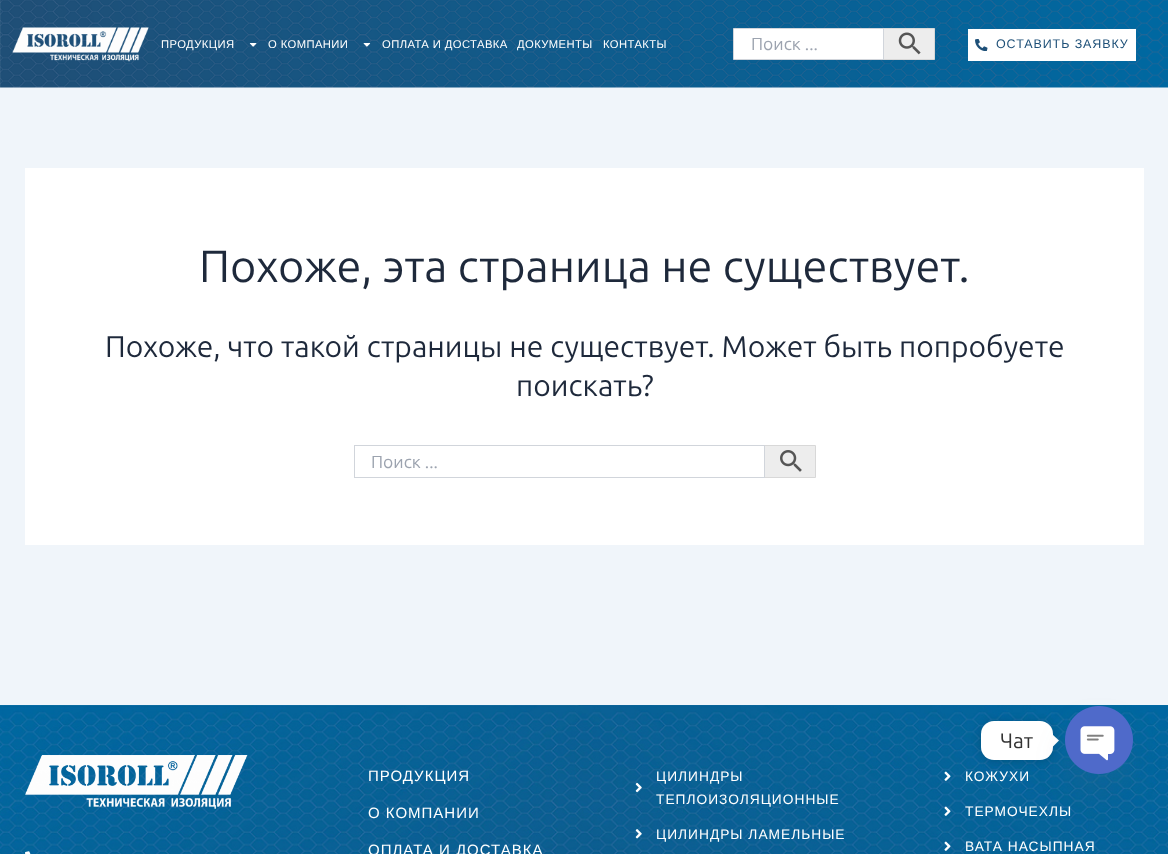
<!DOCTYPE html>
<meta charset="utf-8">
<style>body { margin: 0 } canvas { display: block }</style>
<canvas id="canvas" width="1168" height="854"></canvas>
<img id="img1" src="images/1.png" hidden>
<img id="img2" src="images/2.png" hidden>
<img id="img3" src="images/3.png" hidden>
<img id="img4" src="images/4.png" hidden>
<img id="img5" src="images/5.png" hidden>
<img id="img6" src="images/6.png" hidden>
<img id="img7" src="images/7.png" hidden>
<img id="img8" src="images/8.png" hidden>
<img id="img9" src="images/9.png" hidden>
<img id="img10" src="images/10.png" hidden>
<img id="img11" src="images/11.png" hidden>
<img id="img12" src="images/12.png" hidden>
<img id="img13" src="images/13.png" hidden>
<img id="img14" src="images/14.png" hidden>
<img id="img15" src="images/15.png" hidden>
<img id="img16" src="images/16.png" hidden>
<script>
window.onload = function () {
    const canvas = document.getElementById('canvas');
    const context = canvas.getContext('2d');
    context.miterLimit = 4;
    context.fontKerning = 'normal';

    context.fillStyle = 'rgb(240, 245, 250)';
    context.fillRect(0, 0, 1168, 854);
    context.drawImage(document.getElementById('img1'), 0, 0, 1168, 88);
    context.drawImage(document.getElementById('img2'), 12, 27, 137, 35);
    context.drawImage(document.getElementById('img3'), 249, 43, 8, 4);
    context.drawImage(document.getElementById('img4'), 363, 43, 8, 4);
    context.fillStyle = 'rgb(237, 237, 237)';
    context.beginPath();
    context.rect(883.5, 28.5, 51, 31);
    context.fill();
    context.strokeStyle = 'rgb(216, 216, 216)';
    context.stroke();
    context.fillStyle = 'rgb(255, 255, 255)';
    context.beginPath();
    context.rect(733.5, 28.5, 150, 31);
    context.fill();
    context.strokeStyle = 'rgb(209, 213, 219)';
    context.stroke();
    context.drawImage(document.getElementById('img5'), 898, 32, 23, 23);
    context.fillRect(968, 29, 168, 32);
    context.drawImage(document.getElementById('img6'), 975, 39, 13, 12);
    context.fillRect(25, 168, 1119, 377);
    context.fillStyle = 'rgb(237, 237, 237)';
    context.beginPath();
    context.rect(764.5, 445.5, 51, 32);
    context.fill();
    context.strokeStyle = 'rgb(216, 216, 216)';
    context.stroke();
    context.strokeStyle = 'rgb(209, 213, 219)';
    context.strokeRect(354.5, 445.5, 410, 32);
    context.drawImage(document.getElementById('img7'), 780, 450, 22, 22);
    context.drawImage(document.getElementById('img8'), 0, 705, 1168, 149);
    context.drawImage(document.getElementById('img9'), 25, 755, 223, 54);
    context.drawImage(document.getElementById('img10'), 25, 851, 6, 3);
    context.drawImage(document.getElementById('img11'), 635, 782, 7, 11);
    context.drawImage(document.getElementById('img12'), 635, 829, 7, 10);
    context.drawImage(document.getElementById('img13'), 944, 771, 7, 10);
    context.drawImage(document.getElementById('img14'), 944, 806, 7, 10);
    context.drawImage(document.getElementById('img15'), 944, 841, 7, 10);
    context.fillStyle = 'rgba(0, 0, 0, 0.15)';
    context.filter = 'blur(5px)';
    context.beginPath();
    context.roundRect(981, 723, 72, 38, 13);
    context.fill();
    context.filter = 'none';
    context.fillStyle = 'rgb(255, 255, 255)';
    context.beginPath();
    context.roundRect(981, 721, 72, 39, 13);
    context.fill();
    context.beginPath();
    context.moveTo(1052.5, 747);
    context.lineTo(1052.5, 734.5);
    context.lineTo(1059, 740.5);
    context.closePath();
    context.fill();
    context.fillStyle = 'rgba(73, 104, 126, 0.16)';
    context.filter = 'blur(15px)';
    context.beginPath();
    context.roundRect(1065, 726, 68, 68, 34);
    context.fill();
    context.filter = 'none';
    context.drawImage(document.getElementById('img16'), 1065, 706, 68, 68);
    context.letterSpacing = '0.4px';
    context.font = '11.25px Liberation Sans';
    context.fillStyle = 'rgb(255, 255, 255)';
    context.fillText('ПРОДУКЦИЯ', 161, 48);
    context.fillText('О КОМПАНИИ', 268, 48);
    context.fillText('ОПЛАТА И ДОСТАВКА', 382, 48);
    context.fillText('ДОКУМЕНТЫ', 517, 48);
    context.fillText('КОНТАКТЫ', 603, 48);
    context.letterSpacing = '0px';
    context.font = '17.5px Ubuntu';
    context.fillStyle = 'rgb(156, 163, 175)';
    context.fillText('Поиск ...', 751, 50);
    context.letterSpacing = '0.9px';
    context.font = '12.5px Liberation Sans';
    context.fillStyle = 'rgb(30, 80, 120)';
    context.fillText('ОСТАВИТЬ ЗАЯВКУ', 996, 48);
    context.letterSpacing = '0px';
    context.font = '45px Ubuntu';
    context.fillStyle = 'rgb(30, 41, 59)';
    context.fillText('Похоже, эта страница не существует.', 199, 282);
    context.font = '30px Ubuntu';
    context.fillText('Похоже, что такой страницы не существует. Может быть попробуете', 105, 357);
    context.fillText('поискать?', 516, 396);
    context.font = '17.5px Ubuntu';
    context.fillStyle = 'rgb(156, 163, 175)';
    context.fillText('Поиск ...', 371, 468);
    context.letterSpacing = '1px';
    context.font = '15px Liberation Sans';
    context.fillStyle = 'rgb(255, 255, 255)';
    context.fillText('ПРОДУКЦИЯ', 368, 781);
    context.fillText('О КОМПАНИИ', 368, 818);
    context.fillText('ОПЛАТА И ДОСТАВКА', 368, 855);
    context.font = '13.75px Liberation Sans';
    context.fillText('ЦИЛИНДРЫ', 656, 781);
    context.fillText('ТЕПЛОИЗОЛЯЦИОННЫЕ', 656, 804);
    context.fillText('ЦИЛИНДРЫ ЛАМЕЛЬНЫЕ', 656, 839);
    context.fillText('КОЖУХИ', 965, 781);
    context.fillText('ТЕРМОЧЕХЛЫ', 965, 816);
    context.fillText('ВАТА НАСЫПНАЯ', 965, 851);
    context.letterSpacing = '0px';
    context.font = '21px Ubuntu';
    context.fillStyle = 'rgb(51, 51, 51)';
    context.fillText('Чат', 1000, 748);
};
</script>
